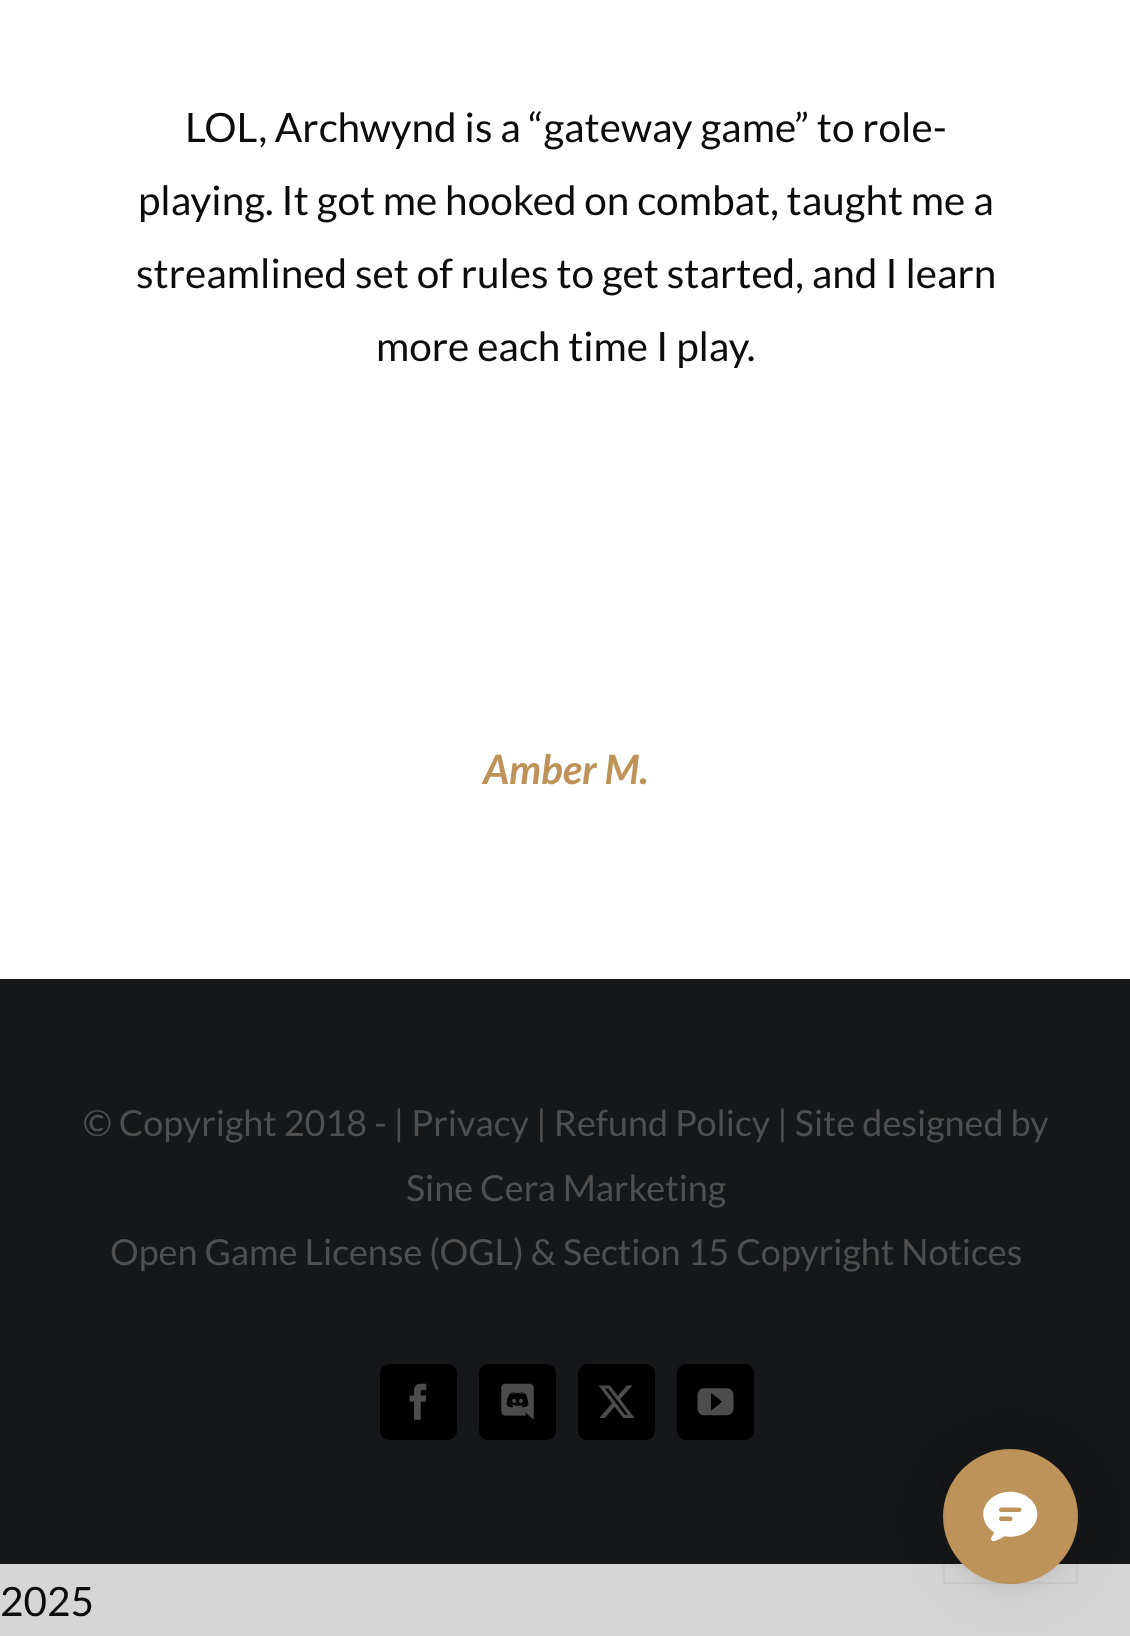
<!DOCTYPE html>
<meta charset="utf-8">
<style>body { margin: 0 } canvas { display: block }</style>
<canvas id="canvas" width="1130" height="1636"></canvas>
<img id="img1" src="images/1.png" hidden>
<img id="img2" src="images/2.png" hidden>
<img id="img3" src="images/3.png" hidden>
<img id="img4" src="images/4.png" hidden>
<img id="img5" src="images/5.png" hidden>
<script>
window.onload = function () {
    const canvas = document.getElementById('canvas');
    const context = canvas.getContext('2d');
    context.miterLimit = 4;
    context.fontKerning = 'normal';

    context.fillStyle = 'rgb(215, 214, 214)';
    context.fillRect(0, 0, 1130, 1636);
    context.fillStyle = 'rgb(255, 255, 255)';
    context.fillRect(0, 0, 1130, 979);
    context.fillStyle = 'rgb(22, 23, 24)';
    context.fillRect(0, 979, 1130, 585);
    context.fillStyle = 'rgb(0, 0, 0)';
    context.beginPath();
    context.roundRect(381, 1365, 75, 74, 8);
    context.fill();
    context.strokeStyle = 'rgb(0, 0, 0)';
    context.lineWidth = 2;
    context.stroke();
    context.drawImage(document.getElementById('img1'), 409, 1383, 18, 37);
    context.beginPath();
    context.roundRect(480, 1365, 75, 74, 8);
    context.fill();
    context.stroke();
    context.drawImage(document.getElementById('img2'), 501, 1383, 33, 37);
    context.beginPath();
    context.roundRect(579, 1365, 75, 74, 8);
    context.fill();
    context.stroke();
    context.drawImage(document.getElementById('img3'), 598, 1385, 37, 33);
    context.beginPath();
    context.roundRect(678, 1365, 75, 74, 8);
    context.fill();
    context.stroke();
    context.drawImage(document.getElementById('img4'), 697, 1388, 37, 28);
    context.fillStyle = 'rgba(0, 0, 0, 0.08)';
    context.filter = 'blur(27px)';
    context.beginPath();
    context.roundRect(943, 1454, 135, 135, 67.5);
    context.fill();
    context.filter = 'none';
    context.fillStyle = 'rgba(0, 0, 0, 0.06)';
    context.filter = 'blur(7px)';
    context.beginPath();
    context.roundRect(943, 1451, 135, 135, 67.5);
    context.fill();
    context.filter = 'none';
    context.fillStyle = 'rgb(190, 147, 89)';
    context.beginPath();
    context.arc(1010.5, 1516.5, 67.5, 0, 2 * Math.PI);
    context.fill();
    context.strokeStyle = 'rgba(0, 0, 0, 0.04)';
    context.strokeRect(944, 1450, 133, 133);
    context.drawImage(document.getElementById('img5'), 983, 1491, 55, 51);
    context.font = '40.5px Lato';
    context.fillStyle = 'rgb(12, 12, 12)';
    context.fillText('LOL, Archwynd is a “gateway game” to role-', 185, 142);
    context.fillText('playing. It got me hooked on combat, taught me a', 138, 215);
    context.fillText('streamlined set of rules to get started, and I learn', 136, 288);
    context.fillText('more each time I play.', 376, 361);
    context.font = 'italic bold 40.5px Lato';
    context.fillStyle = 'rgb(190, 147, 89)';
    context.fillText('Amber M.', 483, 784);
    context.font = '36px Lato';
    context.fillStyle = 'rgb(79, 79, 79)';
    context.fillText('© Copyright 2018 - | Privacy | Refund Policy | Site designed by', 83, 1136);
    context.fillText('Sine Cera Marketing', 406, 1201);
    context.fillText('Open Game License (OGL) & Section 15 Copyright Notices', 110, 1265);
    context.font = '40.5px Lato';
    context.fillStyle = 'rgb(12, 12, 12)';
    context.fillText('2025', 0, 1616);
};
</script>
